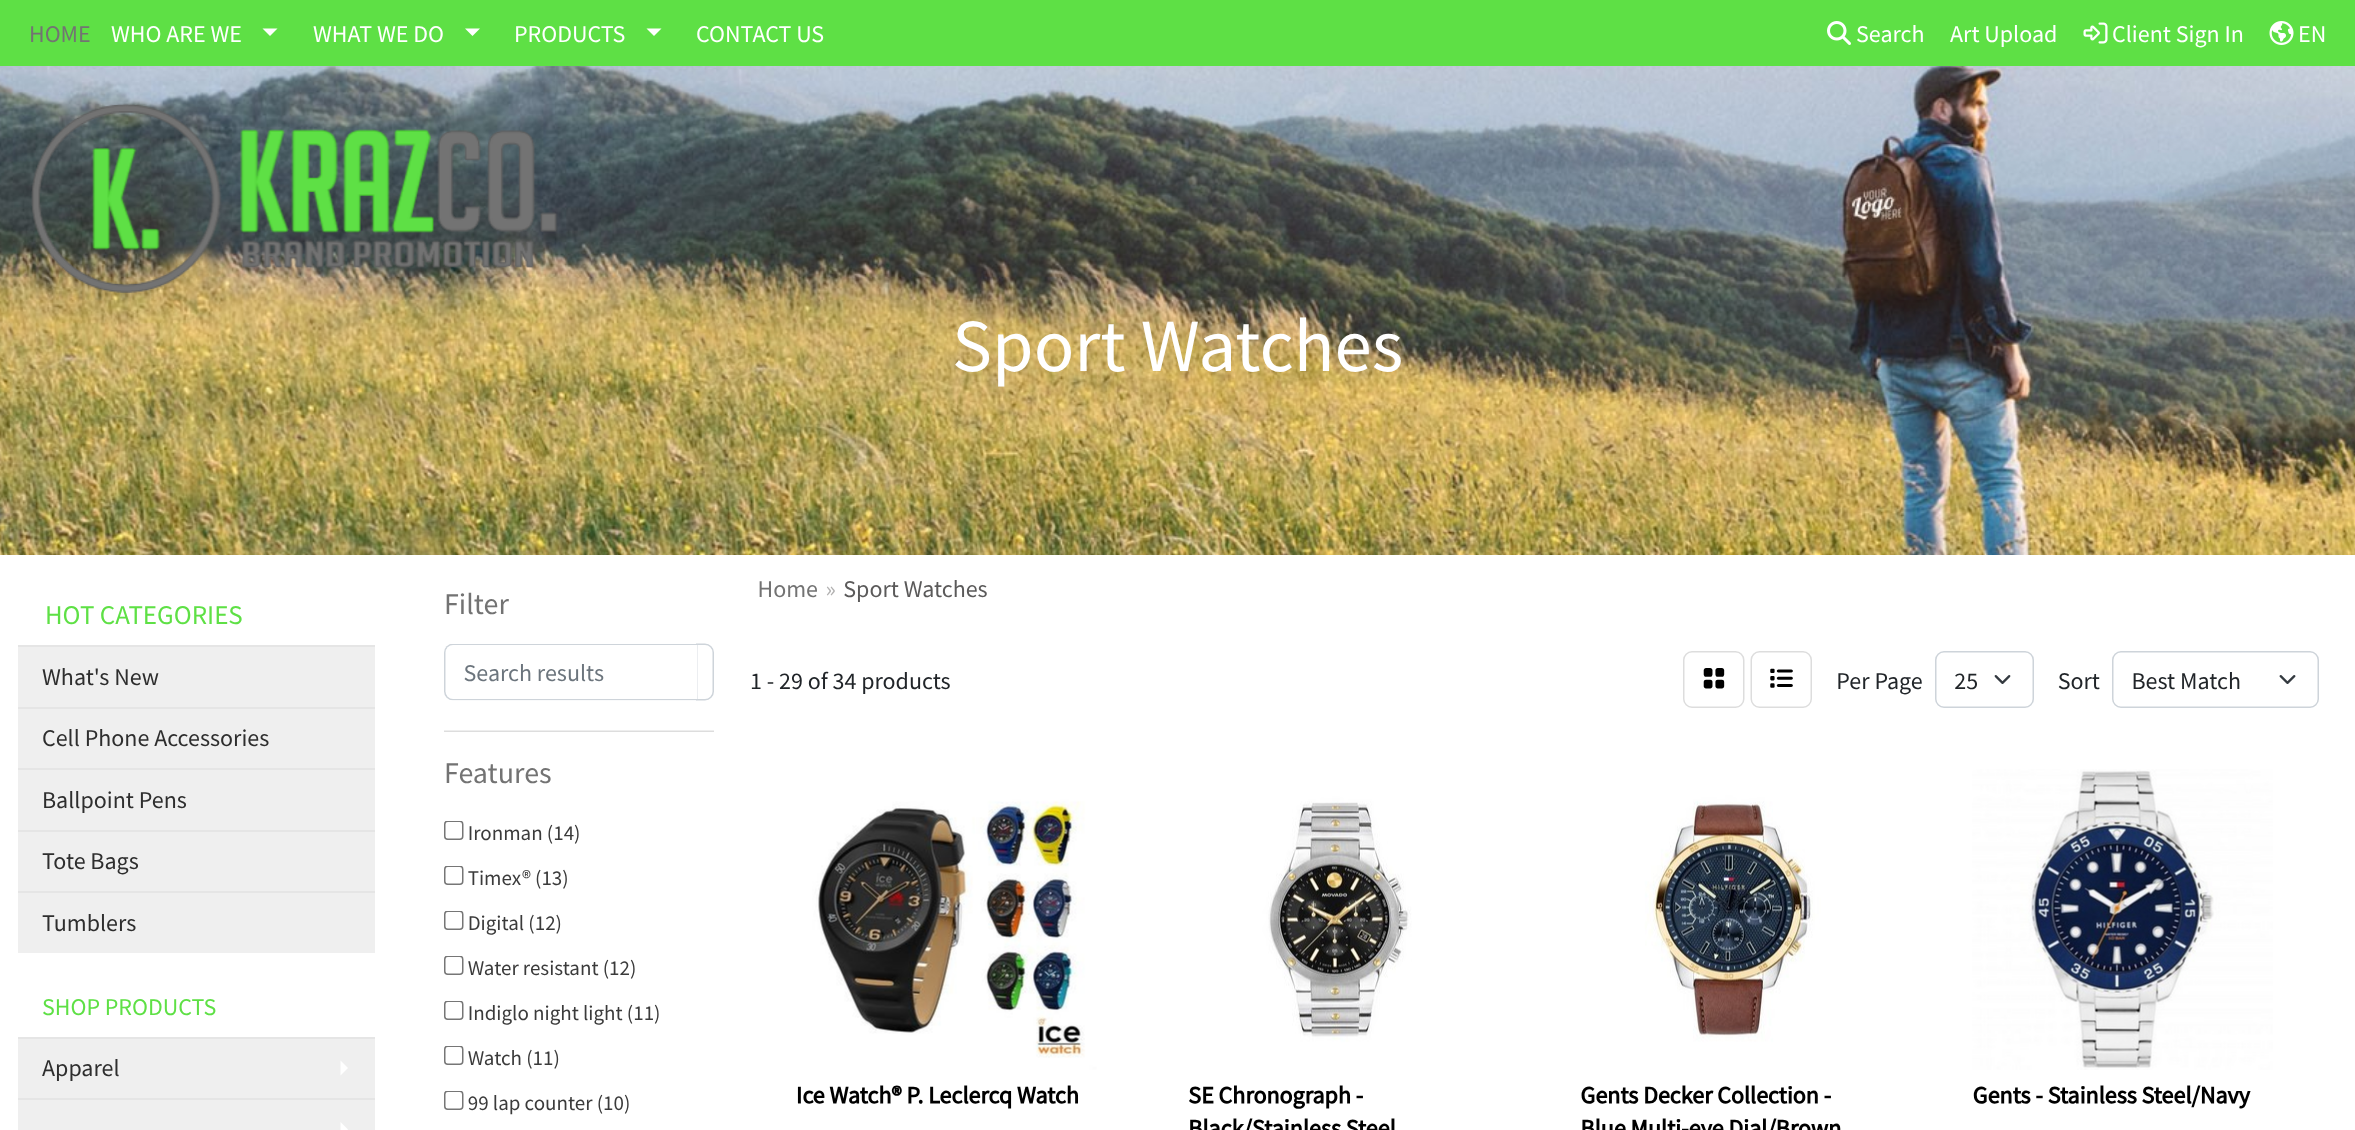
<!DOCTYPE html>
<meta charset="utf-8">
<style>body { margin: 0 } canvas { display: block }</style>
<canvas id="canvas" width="2355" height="1130"></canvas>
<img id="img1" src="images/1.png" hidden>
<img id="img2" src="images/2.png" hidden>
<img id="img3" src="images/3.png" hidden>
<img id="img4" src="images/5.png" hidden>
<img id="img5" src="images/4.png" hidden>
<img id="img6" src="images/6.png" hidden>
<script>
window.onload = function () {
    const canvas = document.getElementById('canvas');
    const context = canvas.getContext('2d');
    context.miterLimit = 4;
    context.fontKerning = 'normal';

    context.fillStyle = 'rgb(255, 255, 255)';
    context.fillRect(0, 0, 2355, 1130);
    context.fillStyle = 'rgb(94, 224, 69)';
    context.fillRect(0, 0, 2355, 66);
    context.fillStyle = 'rgb(255, 255, 255)';
    context.beginPath();
    context.moveTo(262.5, 28.5);
    context.lineTo(277.5, 28.5);
    context.lineTo(270, 36);
    context.closePath();
    context.fill();
    context.beginPath();
    context.moveTo(465, 28.5);
    context.lineTo(480, 28.5);
    context.lineTo(472.5, 36);
    context.closePath();
    context.fill();
    context.beginPath();
    context.moveTo(646.5, 28.5);
    context.lineTo(661.5, 28.5);
    context.lineTo(654, 36);
    context.closePath();
    context.fill();
    context.drawImage(document.getElementById('img1'), 1827, 21, 24, 24);
    context.drawImage(document.getElementById('img2'), 2083, 22, 25, 22);
    context.drawImage(document.getElementById('img3'), 2269, 21, 25, 24);
    context.drawImage(document.getElementById('img4'), 0, 66, 2355, 489);
    context.drawImage(document.getElementById('img5'), 31, 103, 527, 190);
    context.fillStyle = 'rgb(239, 239, 239)';
    context.fillRect(18, 647, 357, 60);
    context.fillStyle = 'rgb(229, 229, 229)';
    context.fillRect(18, 645, 357, 2);
    context.fillStyle = 'rgb(239, 239, 239)';
    context.fillRect(18, 709, 357, 59);
    context.fillStyle = 'rgb(229, 229, 229)';
    context.fillRect(18, 707, 357, 2);
    context.fillStyle = 'rgb(239, 239, 239)';
    context.fillRect(18, 770, 357, 60);
    context.fillStyle = 'rgb(229, 229, 229)';
    context.fillRect(18, 768, 357, 2);
    context.fillStyle = 'rgb(239, 239, 239)';
    context.fillRect(18, 832, 357, 59);
    context.fillStyle = 'rgb(229, 229, 229)';
    context.fillRect(18, 830, 357, 2);
    context.fillStyle = 'rgb(239, 239, 239)';
    context.fillRect(18, 893, 357, 60);
    context.fillStyle = 'rgb(229, 229, 229)';
    context.fillRect(18, 891, 357, 2);
    context.fillStyle = 'rgb(239, 239, 239)';
    context.fillRect(18, 1039, 357, 59);
    context.fillStyle = 'rgb(229, 229, 229)';
    context.fillRect(18, 1037, 357, 2);
    context.fillStyle = 'rgb(255, 255, 255)';
    context.beginPath();
    context.moveTo(340.5, 1075.5);
    context.lineTo(340.5, 1060.5);
    context.lineTo(348, 1068);
    context.closePath();
    context.fill();
    context.fillStyle = 'rgb(239, 239, 239)';
    context.fillRect(18, 1100, 357, 30);
    context.fillStyle = 'rgb(229, 229, 229)';
    context.fillRect(18, 1098, 357, 2);
    context.fillStyle = 'rgb(255, 255, 255)';
    context.beginPath();
    context.moveTo(340.5, 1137);
    context.lineTo(340.5, 1122);
    context.lineTo(348, 1129.5);
    context.closePath();
    context.fill();
    context.drawImage(document.getElementById('img6'), 444, 580, 1875, 550);
    context.font = '24px Source Sans Pro';
    context.fillStyle = 'rgb(115, 115, 115)';
    context.fillText('HOME', 29, 42);
    context.fillStyle = 'rgb(255, 255, 255)';
    context.fillText('WHO ARE WE', 111, 42);
    context.fillText('WHAT WE DO', 313, 42);
    context.fillText('PRODUCTS', 514, 42);
    context.fillText('CONTACT US', 696, 42);
    context.fillText('Search', 1856, 42);
    context.fillText('Art Upload', 1950, 42);
    context.fillText('Client Sign In', 2112, 42);
    context.fillText('EN', 2298, 42);
    context.font = '75px Source Sans Pro';
    context.fillText('Sport Watches', 952, 371);
    context.font = '27px Source Sans Pro';
    context.fillStyle = 'rgb(94, 224, 69)';
    context.fillText('HOT CATEGORIES', 45, 624);
    context.font = '24px Source Sans Pro';
    context.fillStyle = 'rgb(46, 46, 46)';
    context.fillText('What\'s New', 42, 685);
    context.fillText('Cell Phone Accessories', 42, 746);
    context.fillText('Ballpoint Pens', 42, 808);
    context.fillText('Tote Bags', 42, 869);
    context.fillText('Tumblers', 42, 931);
    context.fillStyle = 'rgb(94, 224, 69)';
    context.fillText('SHOP PRODUCTS', 42, 1015);
    context.fillStyle = 'rgb(46, 46, 46)';
    context.fillText('Apparel', 42, 1076);
};
</script>
